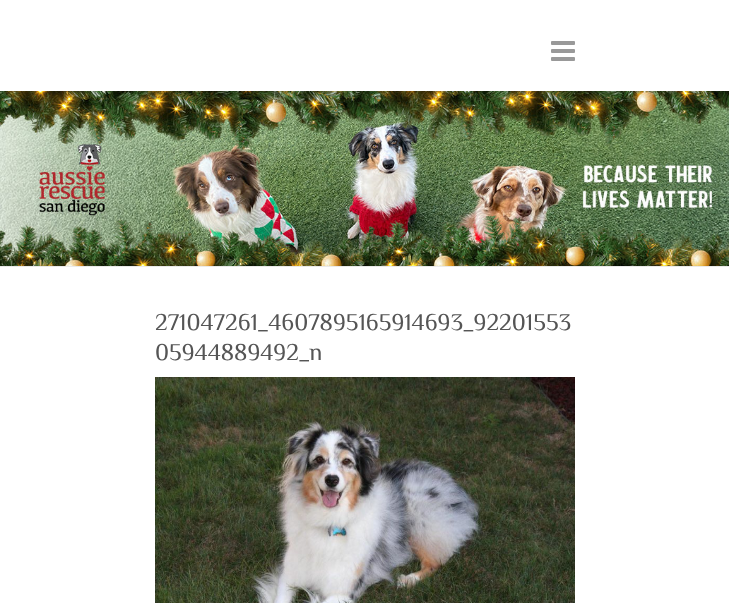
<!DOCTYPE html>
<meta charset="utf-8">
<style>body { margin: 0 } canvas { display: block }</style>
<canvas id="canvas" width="729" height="603"></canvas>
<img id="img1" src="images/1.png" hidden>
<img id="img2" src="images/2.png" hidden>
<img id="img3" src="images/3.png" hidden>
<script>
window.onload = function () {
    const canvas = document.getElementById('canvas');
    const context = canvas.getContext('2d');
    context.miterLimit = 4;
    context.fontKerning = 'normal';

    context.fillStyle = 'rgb(255, 255, 255)';
    context.fillRect(0, 0, 729, 603);
    context.drawImage(document.getElementById('img1'), 551, 41, 24, 20);
    context.drawImage(document.getElementById('img2'), 0, 91, 729, 175);
    context.fillStyle = 'rgb(234, 234, 234)';
    context.fillRect(0, 266, 729, 1);
    context.drawImage(document.getElementById('img3'), 155, 377, 420, 226);
    context.font = '24px Philosopher';
    context.fillStyle = 'rgb(85, 85, 85)';
    context.fillText('271047261_4607895165914693_92201553', 155, 330);
    context.fillText('05944889492_n', 155, 360);
};
</script>
